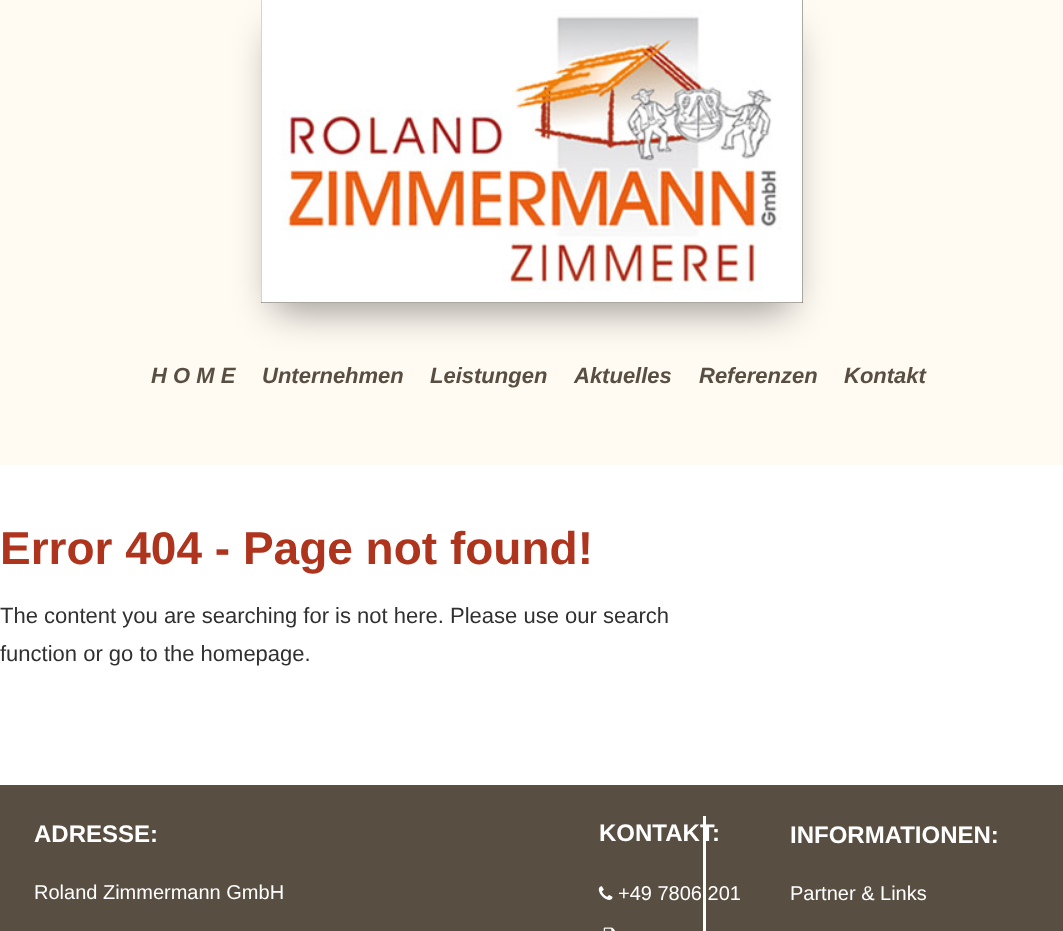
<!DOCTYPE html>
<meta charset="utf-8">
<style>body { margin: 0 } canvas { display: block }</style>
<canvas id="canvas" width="1063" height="931"></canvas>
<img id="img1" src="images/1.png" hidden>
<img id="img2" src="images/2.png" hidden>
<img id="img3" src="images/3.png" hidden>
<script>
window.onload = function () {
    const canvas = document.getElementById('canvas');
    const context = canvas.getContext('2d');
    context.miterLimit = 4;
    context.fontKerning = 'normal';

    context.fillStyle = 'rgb(255, 255, 255)';
    context.fillRect(0, 0, 1063, 931);
    context.fillStyle = 'rgb(255, 250, 242)';
    context.fillRect(0, 0, 1063, 465);
    context.fillStyle = 'rgba(0, 0, 0, 0.4)';
    context.filter = 'blur(19px)';
    context.beginPath();
    context.rect(274, 33, 516, 277);
    context.fill();
    context.filter = 'none';
    context.fillStyle = 'rgb(88, 78, 66)';
    context.fillRect(261, 0, 542, 303);
    context.drawImage(document.getElementById('img1'), 261, 0, 542, 303);
    context.fillRect(0, 785, 1063, 146);
    context.drawImage(document.getElementById('img2'), 598, 886, 15, 14);
    context.drawImage(document.getElementById('img3'), 603, 927, 12, 4);
    context.fillStyle = 'rgb(255, 255, 255)';
    context.fillRect(703, 816, 3, 115);
    context.font = 'italic bold 22px Liberation Sans';
    context.fillStyle = 'rgb(88, 78, 66)';
    context.fillText('H O M E', 151, 383);
    context.fillText('Unternehmen', 262, 383);
    context.fillText('Leistungen', 430, 383);
    context.fillText('Aktuelles', 574, 383);
    context.fillText('Referenzen', 699, 383);
    context.fillText('Kontakt', 844, 383);
    context.font = 'bold 46px Liberation Sans';
    context.fillStyle = 'rgb(174, 52, 29)';
    context.fillText('Error 404 - Page not found!', 0, 564);
    context.font = '22px Liberation Sans';
    context.fillStyle = 'rgb(48, 48, 48)';
    context.fillText('The content you are searching for is not here. Please use our search', 0, 623);
    context.fillText('function or go to the homepage.', 0, 661);
    context.font = 'bold 24px Liberation Sans';
    context.fillStyle = 'rgb(255, 255, 255)';
    context.fillText('ADRESSE:', 34, 842);
    context.font = '20px Liberation Sans';
    context.fillText('Roland Zimmermann GmbH', 34, 899);
    context.font = 'bold 24px Liberation Sans';
    context.fillText('KONTAKT:', 599, 841);
    context.font = '20px Liberation Sans';
    context.fillText('+49 7806 201', 618, 900);
    context.font = 'bold 24px Liberation Sans';
    context.fillText('INFORMATIONEN:', 790, 843);
    context.font = '20px Liberation Sans';
    context.fillText('Partner & Links', 790, 900);
};
</script>
